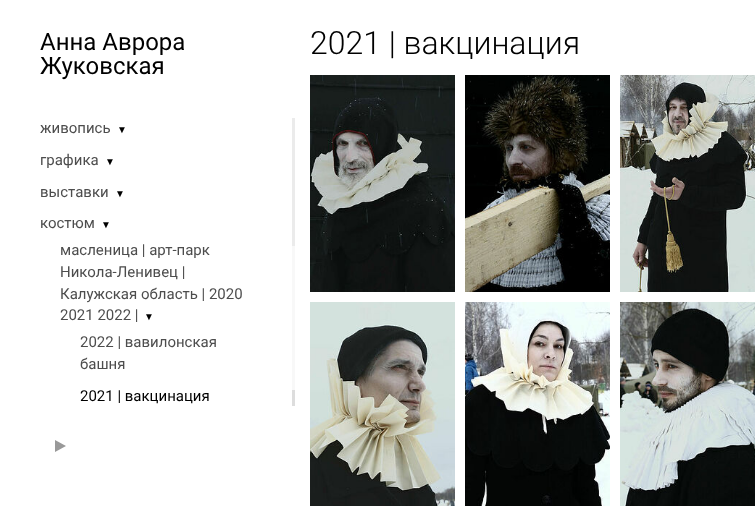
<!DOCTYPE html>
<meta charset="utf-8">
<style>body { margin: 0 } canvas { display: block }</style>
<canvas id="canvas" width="755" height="506"></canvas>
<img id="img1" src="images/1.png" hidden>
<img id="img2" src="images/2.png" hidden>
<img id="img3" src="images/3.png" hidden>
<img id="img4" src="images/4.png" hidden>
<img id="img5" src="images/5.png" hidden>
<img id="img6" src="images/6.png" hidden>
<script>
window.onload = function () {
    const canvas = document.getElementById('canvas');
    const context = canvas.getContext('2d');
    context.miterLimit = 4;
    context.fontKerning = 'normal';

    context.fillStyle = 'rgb(255, 255, 255)';
    context.fillRect(0, 0, 755, 506);
    context.fillStyle = 'rgb(153, 153, 153)';
    context.beginPath();
    context.moveTo(66, 446);
    context.lineTo(55, 452);
    context.lineTo(55, 440);
    context.closePath();
    context.fill();
    context.fillStyle = 'rgb(235, 235, 235)';
    context.fillRect(292, 118, 3, 128);
    context.fillStyle = 'rgb(248, 248, 248)';
    context.fillRect(292, 246, 3, 144);
    context.fillStyle = 'rgb(221, 221, 221)';
    context.fillRect(292, 390, 3, 16);
    context.drawImage(document.getElementById('img1'), 310, 75, 145, 217);
    context.drawImage(document.getElementById('img2'), 465, 75, 145, 217);
    context.drawImage(document.getElementById('img3'), 620, 75, 135, 217);
    context.drawImage(document.getElementById('img4'), 310, 302, 145, 204);
    context.drawImage(document.getElementById('img5'), 465, 302, 145, 204);
    context.drawImage(document.getElementById('img6'), 620, 302, 135, 204);
    context.font = '24px Roboto';
    context.fillStyle = 'rgb(0, 0, 0)';
    context.fillText('Анна Аврора', 40, 50);
    context.fillText('Жуковская', 40, 74);
    context.font = '15px Roboto';
    context.fillStyle = 'rgb(77, 77, 77)';
    context.fillText('живопись', 40, 133);
    context.font = '10px Liberation Serif';
    context.fillStyle = 'rgb(0, 0, 0)';
    context.fillText('▼', 117, 133);
    context.font = '15px Roboto';
    context.fillStyle = 'rgb(77, 77, 77)';
    context.fillText('графика', 40, 165);
    context.font = '10px Liberation Serif';
    context.fillStyle = 'rgb(0, 0, 0)';
    context.fillText('▼', 105, 165);
    context.font = '15px Roboto';
    context.fillStyle = 'rgb(77, 77, 77)';
    context.fillText('выставки', 40, 197);
    context.font = '10px Liberation Serif';
    context.fillStyle = 'rgb(0, 0, 0)';
    context.fillText('▼', 115, 197);
    context.font = '15px Roboto';
    context.fillStyle = 'rgb(77, 77, 77)';
    context.fillText('костюм', 40, 228);
    context.font = '10px Liberation Serif';
    context.fillStyle = 'rgb(0, 0, 0)';
    context.fillText('▼', 101, 228);
    context.font = '15px Roboto';
    context.fillStyle = 'rgb(77, 77, 77)';
    context.fillText('масленица | арт-парк', 60, 255);
    context.fillText('Никола-Ленивец |', 60, 277);
    context.fillText('Калужская область | 2020', 60, 299);
    context.fillText('2021 2022 |', 60, 320);
    context.font = '10px Liberation Serif';
    context.fillStyle = 'rgb(0, 0, 0)';
    context.fillText('▼', 144, 320);
    context.font = '15px Roboto';
    context.fillStyle = 'rgb(77, 77, 77)';
    context.fillText('2022 | вавилонская', 80, 347);
    context.fillText('башня', 80, 369);
    context.fillStyle = 'rgb(0, 0, 0)';
    context.fillText('2021 | вакцинация', 80, 401);
    context.font = '300 32px Roboto';
    context.fillText('2021 | вакцинация', 310, 54);
};
</script>
